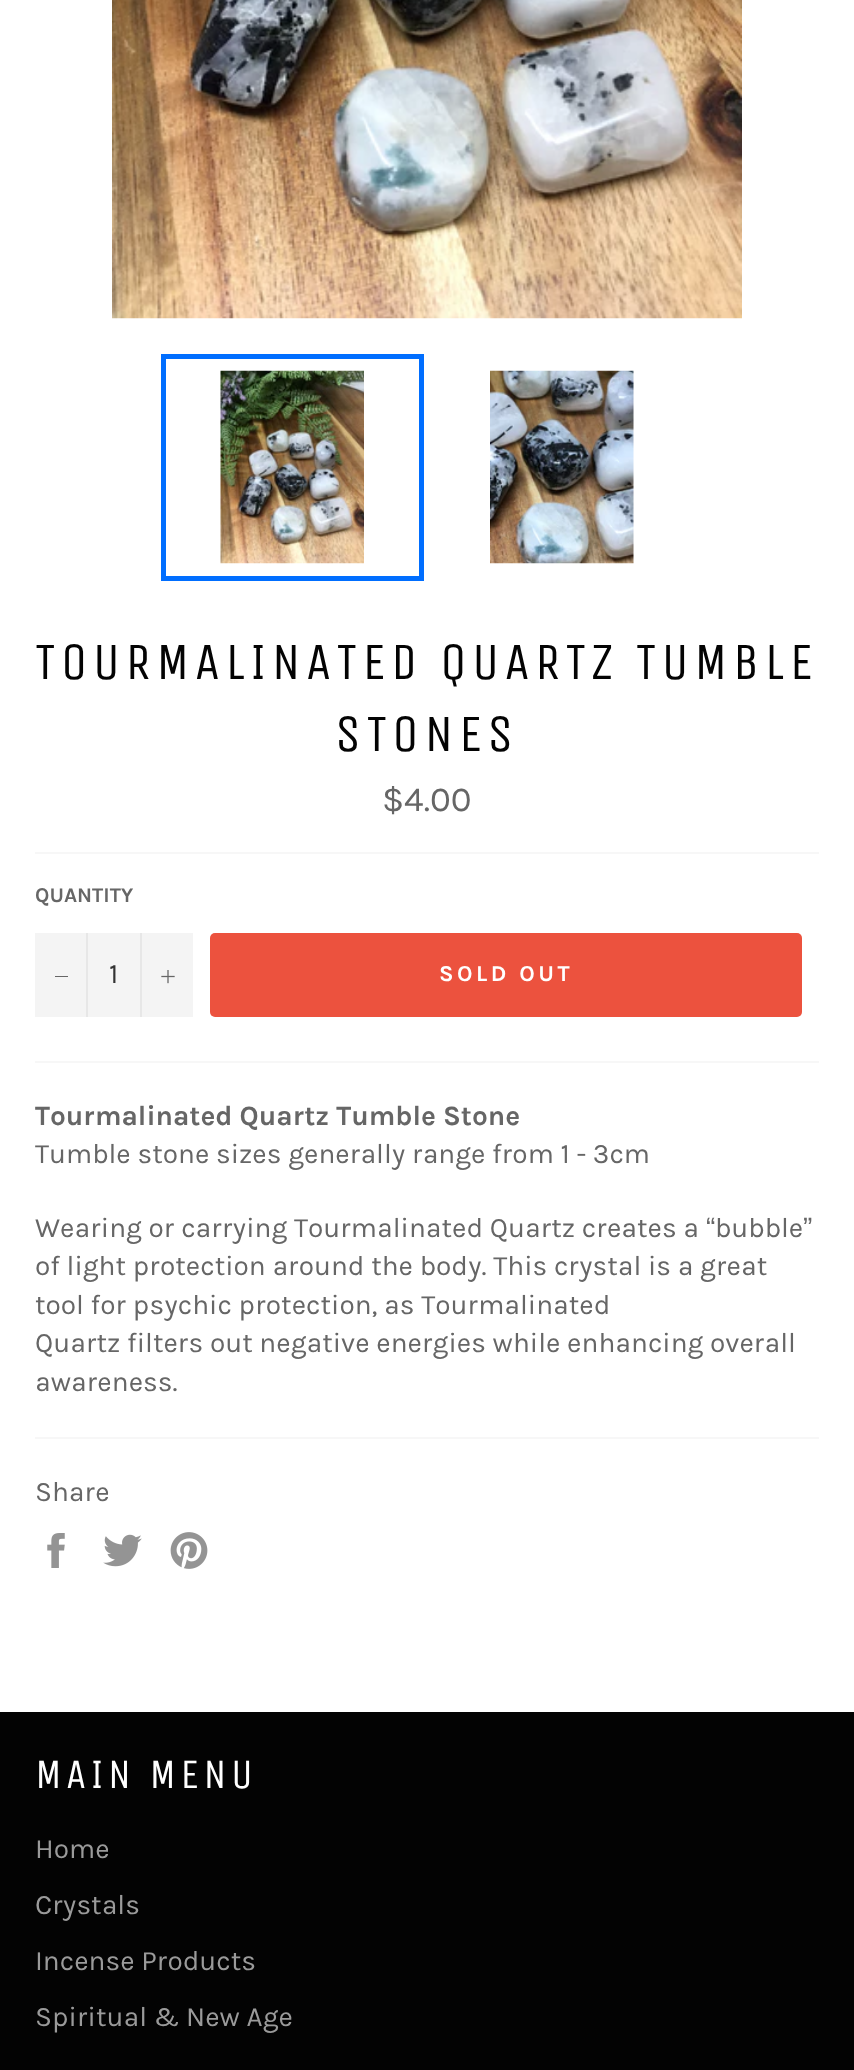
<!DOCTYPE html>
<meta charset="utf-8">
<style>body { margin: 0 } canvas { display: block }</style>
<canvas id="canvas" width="854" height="2070"></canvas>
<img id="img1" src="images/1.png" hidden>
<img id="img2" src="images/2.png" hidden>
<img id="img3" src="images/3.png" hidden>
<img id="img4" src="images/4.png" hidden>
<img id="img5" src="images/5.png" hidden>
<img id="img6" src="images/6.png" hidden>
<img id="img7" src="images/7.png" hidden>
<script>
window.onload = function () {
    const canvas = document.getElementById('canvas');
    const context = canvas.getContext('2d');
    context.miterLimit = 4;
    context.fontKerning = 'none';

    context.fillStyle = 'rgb(255, 255, 255)';
    context.fillRect(0, 0, 854, 2070);
    context.drawImage(document.getElementById('img1'), 112, 0, 630, 319);
    context.drawImage(document.getElementById('img2'), 220, 370, 144, 194);
    context.strokeStyle = 'rgb(0, 110, 255)';
    context.lineWidth = 5;
    context.strokeRect(163.5, 356.5, 258, 222);
    context.drawImage(document.getElementById('img3'), 490, 370, 144, 194);
    context.fillStyle = 'rgb(247, 247, 247)';
    context.fillRect(35, 852, 784, 2);
    context.fillStyle = 'rgb(244, 244, 244)';
    context.fillRect(35, 933, 158, 84);
    context.fillStyle = 'rgb(231, 231, 231)';
    context.fillRect(86, 933, 2, 84);
    context.fillStyle = 'rgb(102, 102, 102)';
    context.fillRect(55, 976, 13, 1);
    context.fillStyle = 'rgb(231, 231, 231)';
    context.fillRect(140, 933, 2, 84);
    context.drawImage(document.getElementById('img4'), 161, 970, 14, 14);
    context.fillStyle = 'rgb(236, 82, 62)';
    context.beginPath();
    context.roundRect(210, 933, 592, 84, 5);
    context.fill();
    context.fillStyle = 'rgb(247, 247, 247)';
    context.fillRect(35, 1061, 784, 2);
    context.fillRect(35, 1437, 784, 2);
    context.drawImage(document.getElementById('img5'), 47, 1533, 18, 35);
    context.drawImage(document.getElementById('img6'), 103, 1534, 39, 33);
    context.drawImage(document.getElementById('img7'), 170, 1532, 38, 37);
    context.fillStyle = 'rgb(3, 3, 3)';
    context.fillRect(0, 1712, 854, 358);
    context.letterSpacing = '5.25px';
    context.font = '52.5px Unica One';
    context.fillText('TOURMALINATED QUARTZ TUMBLE', 35, 679);
    context.fillText('STONES', 335, 751);
    context.letterSpacing = '0px';
    context.font = '35px Karla';
    context.fillStyle = 'rgb(102, 102, 102)';
    context.fillText('$4.00', 382, 811);
    context.font = 'bold 21px Karla';
    context.fillText('QUANTITY', 35, 902);
    context.font = '28px Karla';
    context.fillStyle = 'rgb(51, 51, 51)';
    context.fillText('1', 109, 983);
    context.letterSpacing = '3.5px';
    context.font = 'bold 22.75px Karla';
    context.fillStyle = 'rgb(255, 255, 255)';
    context.fillText('SOLD OUT', 439, 981);
    context.letterSpacing = '0px';
    context.font = 'bold 28px Karla';
    context.fillStyle = 'rgb(102, 102, 102)';
    context.fillText('Tourmalinated Quartz Tumble Stone', 35, 1125);
    context.font = '28px Karla';
    context.fillText('Tumble stone sizes generally range from 1 - 3cm', 35, 1163);
    context.fillText('Wearing or carrying Tourmalinated Quartz creates a', 35, 1237);
    context.font = '28px Liberation Sans';
    context.fillText('“', 706, 1237);
    context.font = '28px Karla';
    context.fillText('bubble', 715, 1237);
    context.font = '28px Liberation Sans';
    context.fillText('”', 803, 1237);
    context.font = '28px Karla';
    context.fillText('of light protection around the body. This crystal is a great', 35, 1275);
    context.fillText('tool for psychic protection, as Tourmalinated', 35, 1314);
    context.fillText('Quartz filters out negative energies while enhancing overall', 35, 1352);
    context.fillText('awareness.', 35, 1391);
    context.fillText('Share', 35, 1501);
    context.letterSpacing = '4.25px';
    context.font = '42px Unica One';
    context.fillStyle = 'rgb(255, 255, 255)';
    context.fillText('MAIN MENU', 35, 1788);
    context.letterSpacing = '0px';
    context.font = '28px Karla';
    context.fillStyle = 'rgb(154, 154, 154)';
    context.fillText('Home', 35, 1858);
    context.fillText('Crystals', 35, 1914);
    context.fillText('Incense Products', 35, 1970);
    context.fillText('Spiritual & New Age', 35, 2026);
};
</script>
